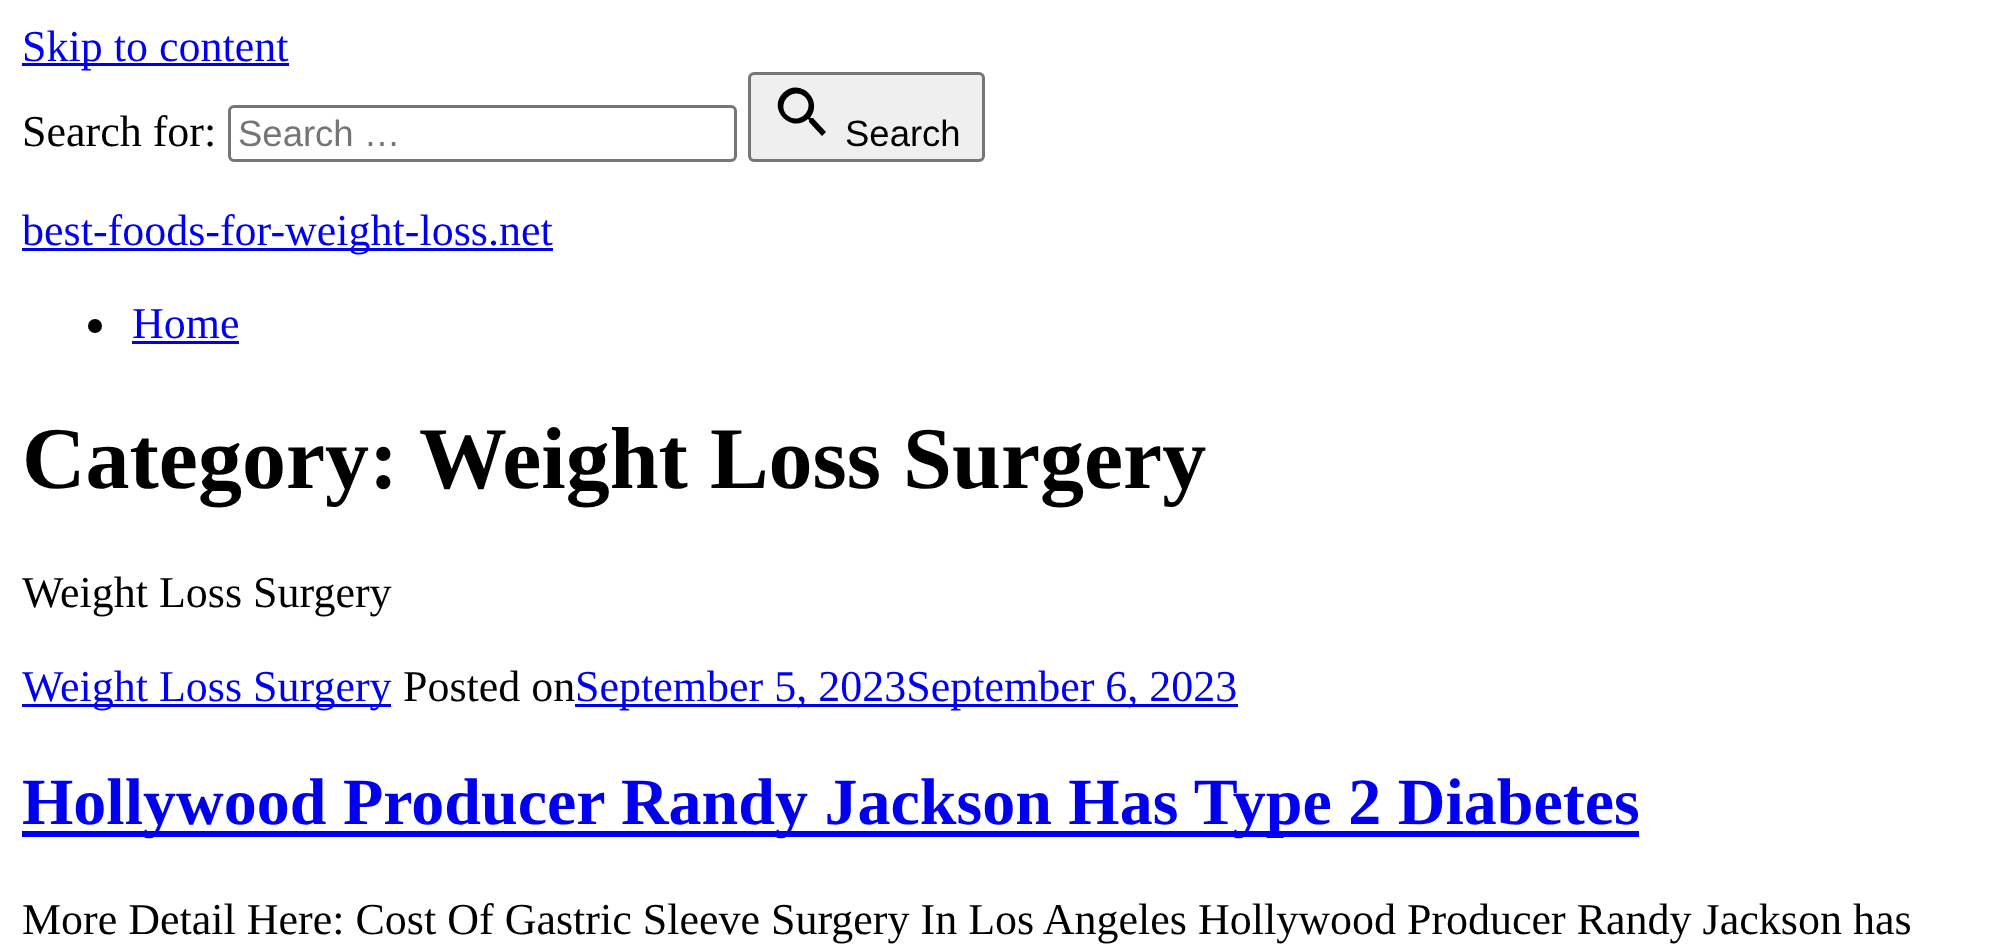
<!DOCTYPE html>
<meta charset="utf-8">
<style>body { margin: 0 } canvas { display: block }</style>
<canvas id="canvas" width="2000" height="948"></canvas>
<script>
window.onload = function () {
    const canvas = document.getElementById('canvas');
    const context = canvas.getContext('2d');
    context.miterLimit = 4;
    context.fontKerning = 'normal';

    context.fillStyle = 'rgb(255, 255, 255)';
    context.fillRect(0, 0, 2000, 948);
    context.fillStyle = 'rgb(0, 0, 238)';
    context.fillRect(22, 63, 267, 3);
    context.beginPath();
    context.roundRect(229.5, 106.5, 506, 54, 4.5);
    context.strokeStyle = 'rgb(118, 118, 118)';
    context.lineWidth = 3;
    context.stroke();
    context.fillStyle = 'rgb(239, 239, 239)';
    context.beginPath();
    context.roundRect(749.5, 73.5, 234, 87, 4.5);
    context.fill();
    context.stroke();
    context.fillStyle = 'rgb(0, 0, 0)';
    context.beginPath();
    context.moveTo(787, 115);
    context.bezierCurveTo(799, 126, 816, 109, 805, 97);
    context.bezierCurveTo(793, 86, 776, 103, 787, 115);
    context.closePath();
    context.moveTo(813, 118);
    context.lineTo(826, 132);
    context.lineTo(822, 136);
    context.lineTo(809, 122);
    context.lineTo(809, 120);
    context.lineTo(808, 119);
    context.bezierCurveTo(791, 134, 767, 109, 783, 93);
    context.bezierCurveTo(800, 77, 824, 100, 810, 118);
    context.closePath();
    context.fill();
    context.fillStyle = 'rgb(0, 0, 238)';
    context.fillRect(22, 248, 531, 3);
    context.fillStyle = 'rgb(0, 0, 0)';
    context.beginPath();
    context.arc(95, 326, 7, 0, 2 * Math.PI);
    context.fill();
    context.fillStyle = 'rgb(0, 0, 238)';
    context.fillRect(132, 341, 107, 3);
    context.fillRect(22, 704, 369, 3);
    context.fillRect(575, 704, 663, 3);
    context.fillRect(22, 831, 1617, 6);
    context.font = '44px Liberation Serif';
    context.fillText('Skip to content', 22, 61);
    context.fillStyle = 'rgb(0, 0, 0)';
    context.fillText('Search for:', 22, 146);
    context.font = '36.5px Liberation Sans';
    context.fillStyle = 'rgb(117, 117, 117)';
    context.fillText('Search …', 238, 146);
    context.fillStyle = 'rgb(0, 0, 0)';
    context.fillText('Search', 845, 146);
    context.font = '44px Liberation Serif';
    context.fillStyle = 'rgb(0, 0, 238)';
    context.fillText('best-foods-for-weight-loss.net', 22, 245);
    context.fillText('Home', 132, 338);
    context.font = 'bold 88px Liberation Serif';
    context.fillStyle = 'rgb(0, 0, 0)';
    context.fillText('Category:', 22, 488);
    context.fillText('Weight Loss Surgery', 419, 488);
    context.font = '44px Liberation Serif';
    context.fillText('Weight Loss Surgery', 22, 607);
    context.fillStyle = 'rgb(0, 0, 238)';
    context.fillText('Weight Loss Surgery', 22, 701);
    context.fillStyle = 'rgb(0, 0, 0)';
    context.fillText('Posted on', 403, 701);
    context.fillStyle = 'rgb(0, 0, 238)';
    context.fillText('September 5, 2023September 6, 2023', 575, 701);
    context.font = 'bold 66px Liberation Serif';
    context.fillText('Hollywood Producer Randy Jackson Has Type 2 Diabetes', 22, 824);
    context.font = '44px Liberation Serif';
    context.fillStyle = 'rgb(0, 0, 0)';
    context.fillText('More Detail Here: Cost Of Gastric Sleeve Surgery In Los Angeles Hollywood Producer Randy Jackson has', 22, 934);
};
</script>
